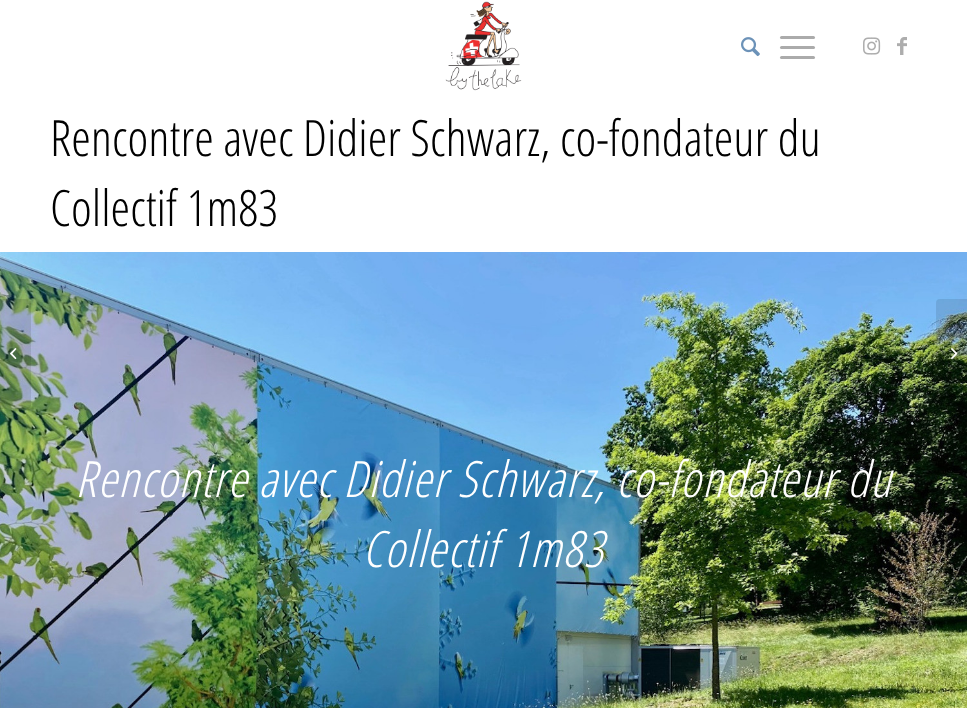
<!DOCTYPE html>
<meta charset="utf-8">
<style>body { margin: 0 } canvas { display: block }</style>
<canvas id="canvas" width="967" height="708"></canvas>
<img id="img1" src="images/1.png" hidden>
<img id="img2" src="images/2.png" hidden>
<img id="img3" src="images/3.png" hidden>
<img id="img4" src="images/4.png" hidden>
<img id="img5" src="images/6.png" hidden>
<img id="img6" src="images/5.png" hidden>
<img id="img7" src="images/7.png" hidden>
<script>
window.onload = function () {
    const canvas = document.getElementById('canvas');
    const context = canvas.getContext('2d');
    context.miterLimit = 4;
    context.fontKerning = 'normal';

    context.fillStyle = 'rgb(255, 255, 255)';
    context.fillRect(0, 0, 967, 708);
    context.drawImage(document.getElementById('img1'), 445, 1, 77, 90);
    context.drawImage(document.getElementById('img2'), 741, 37, 19, 20);
    context.fillStyle = 'rgb(171, 171, 171)';
    context.beginPath();
    context.roundRect(780, 46, 35, 3, 1.5);
    context.fill();
    context.beginPath();
    context.roundRect(780, 36, 35, 3, 1.5);
    context.fill();
    context.beginPath();
    context.roundRect(780, 56, 35, 3, 1.5);
    context.fill();
    context.drawImage(document.getElementById('img3'), 863, 37, 18, 18);
    context.drawImage(document.getElementById('img4'), 897, 37, 10, 18);
    context.drawImage(document.getElementById('img5'), 0, 252, 967, 456);
    context.fillStyle = 'rgba(0, 0, 0, 0.1)';
    context.beginPath();
    context.roundRect(0, 299, 31, 110, [0, 4, 4, 0]);
    context.fill();
    context.drawImage(document.getElementById('img6'), 10, 348, 7, 12);
    context.beginPath();
    context.roundRect(936, 299, 31, 110, [4, 0, 0, 4]);
    context.fill();
    context.drawImage(document.getElementById('img7'), 951, 348, 7, 12);
    context.font = '300 50px Open Sans Condensed';
    context.fillStyle = 'rgb(0, 0, 0)';
    context.fillText('Rencontre avec Didier Schwarz, co-fondateur du', 50, 156);
    context.fillText('Collectif 1m83', 50, 226);
    context.letterSpacing = '1px';
    context.font = 'italic 300 50px Open Sans Condensed';
    context.fillStyle = 'rgb(255, 255, 255)';
    context.fillText('Rencontre avec Didier Schwarz, co-fondateur du', 75, 497);
    context.fillText('Collectif 1m83', 362, 567);
};
</script>
